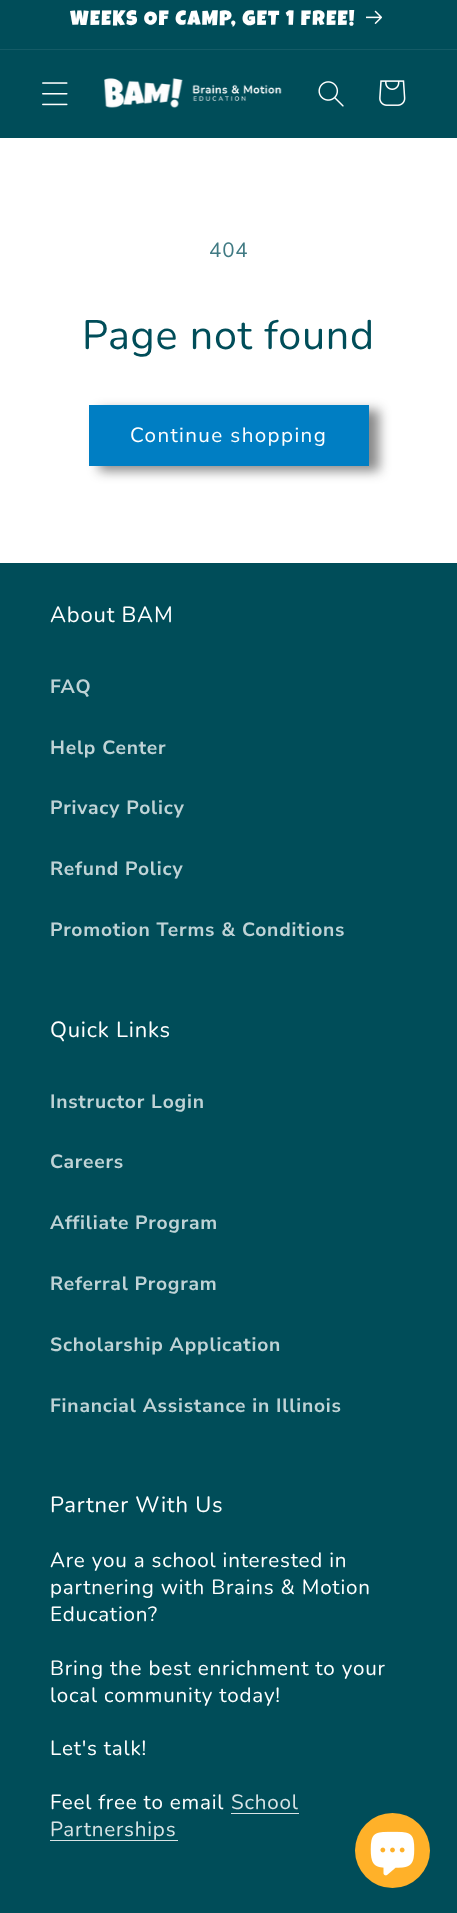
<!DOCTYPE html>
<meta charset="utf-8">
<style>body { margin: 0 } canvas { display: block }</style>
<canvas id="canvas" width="457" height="1913"></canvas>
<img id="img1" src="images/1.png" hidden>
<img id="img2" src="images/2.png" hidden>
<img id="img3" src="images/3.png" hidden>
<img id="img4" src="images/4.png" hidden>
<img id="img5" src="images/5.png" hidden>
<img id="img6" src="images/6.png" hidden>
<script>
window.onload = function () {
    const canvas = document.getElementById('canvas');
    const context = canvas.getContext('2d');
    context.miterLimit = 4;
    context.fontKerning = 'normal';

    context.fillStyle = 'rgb(255, 255, 255)';
    context.fillRect(0, 0, 457, 1913);
    context.fillStyle = 'rgb(0, 77, 89)';
    context.fillRect(0, 0, 457, 49);
    context.fillStyle = 'rgb(20, 91, 102)';
    context.fillRect(0, 49, 457, 1);
    context.drawImage(document.getElementById('img1'), 366, 10, 16, 14);
    context.fillStyle = 'rgb(0, 77, 89)';
    context.fillRect(0, 50, 457, 88);
    context.drawImage(document.getElementById('img2'), 42, 82, 26, 24);
    context.drawImage(document.getElementById('img3'), 104, 78, 178, 30);
    context.drawImage(document.getElementById('img4'), 318, 81, 26, 26);
    context.drawImage(document.getElementById('img5'), 379, 80, 27, 26);
    context.fillStyle = 'rgba(18, 18, 18, 0.5)';
    context.filter = 'blur(6px)';
    context.beginPath();
    context.rect(99, 410, 280, 61);
    context.fill();
    context.filter = 'none';
    context.fillStyle = 'rgb(0, 126, 195)';
    context.fillRect(89, 405, 280, 61);
    context.fillStyle = 'rgb(0, 77, 89)';
    context.fillRect(0, 563, 457, 1350);
    context.fillStyle = 'rgb(217, 228, 230)';
    context.fillRect(231, 1813, 68, 1);
    context.fillRect(50, 1840, 128, 1);
    context.fillStyle = 'rgb(255, 177, 41)';
    context.beginPath();
    context.arc(392.5, 1850.5, 37.5, 0, 2 * Math.PI);
    context.fill();
    context.drawImage(document.getElementById('img6'), 370, 1831, 45, 45);
    context.letterSpacing = '1.4px';
    context.font = '20.6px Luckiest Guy';
    context.fillStyle = 'rgb(255, 255, 255)';
    context.fillText('WEEKS OF CAMP, GET 1 FREE!', 70, 25);
    context.letterSpacing = '0.8px';
    context.font = '20.6px Nunito Sans';
    context.fillStyle = 'rgb(64, 122, 131)';
    context.fillText('404', 209, 257);
    context.font = '200 41.25px Nunito';
    context.fillStyle = 'rgb(0, 77, 89)';
    context.fillText('Page not found', 82, 349);
    context.letterSpacing = '1.4px';
    context.font = '20.6px Nunito Sans';
    context.fillStyle = 'rgb(255, 255, 255)';
    context.fillText('Continue shopping', 130, 442);
    context.letterSpacing = '0.8px';
    context.font = '200 22px Nunito';
    context.fillText('About BAM', 50, 622);
    context.font = 'bold 19.25px Nunito Sans';
    context.fillStyle = 'rgb(191, 211, 214)';
    context.fillText('FAQ', 50, 693);
    context.fillText('Help Center', 50, 754);
    context.fillText('Privacy Policy', 50, 814);
    context.fillText('Refund Policy', 50, 875);
    context.fillText('Promotion Terms & Conditions', 50, 936);
    context.font = '200 22px Nunito';
    context.fillStyle = 'rgb(255, 255, 255)';
    context.fillText('Quick Links', 50, 1037);
    context.font = 'bold 19.25px Nunito Sans';
    context.fillStyle = 'rgb(191, 211, 214)';
    context.fillText('Instructor Login', 50, 1108);
    context.fillText('Careers', 50, 1168);
    context.fillText('Affiliate Program', 50, 1229);
    context.fillText('Referral Program', 50, 1290);
    context.fillText('Scholarship Application', 50, 1351);
    context.fillText('Financial Assistance in Illinois', 50, 1412);
    context.font = '200 22px Nunito';
    context.fillStyle = 'rgb(255, 255, 255)';
    context.fillText('Partner With Us', 50, 1512);
    context.font = '200 20.6px Nunito';
    context.fillText('Are you a school interested in', 50, 1567);
    context.fillText('partnering with Brains & Motion', 50, 1594);
    context.fillText('Education?', 50, 1621);
    context.fillText('Bring the best enrichment to your', 50, 1675);
    context.fillText('local community today!', 50, 1702);
    context.fillText('Let\'s talk!', 50, 1755);
    context.fillText('Feel free to email', 50, 1809);
    context.fillStyle = 'rgb(217, 228, 230)';
    context.fillText('School', 231, 1809);
    context.fillText('Partnerships', 50, 1836);
};
</script>
